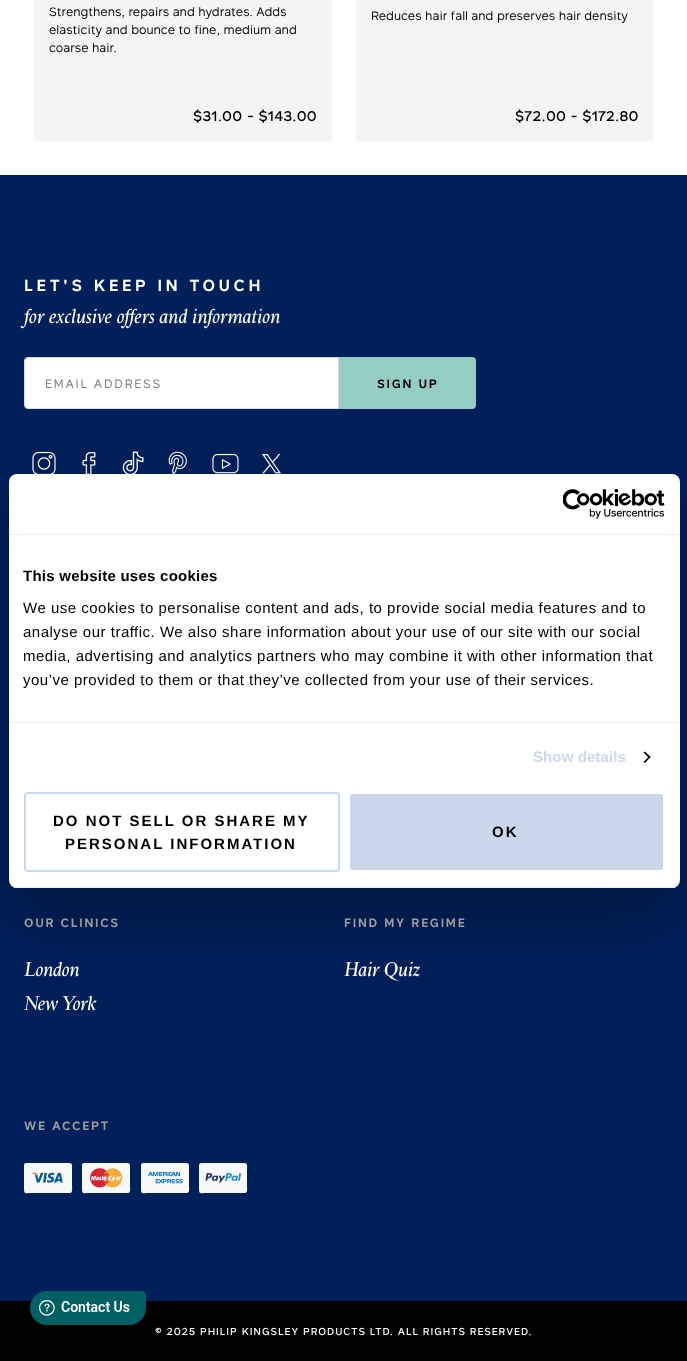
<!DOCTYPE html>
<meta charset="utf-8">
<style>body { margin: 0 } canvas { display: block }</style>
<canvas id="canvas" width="687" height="1361"></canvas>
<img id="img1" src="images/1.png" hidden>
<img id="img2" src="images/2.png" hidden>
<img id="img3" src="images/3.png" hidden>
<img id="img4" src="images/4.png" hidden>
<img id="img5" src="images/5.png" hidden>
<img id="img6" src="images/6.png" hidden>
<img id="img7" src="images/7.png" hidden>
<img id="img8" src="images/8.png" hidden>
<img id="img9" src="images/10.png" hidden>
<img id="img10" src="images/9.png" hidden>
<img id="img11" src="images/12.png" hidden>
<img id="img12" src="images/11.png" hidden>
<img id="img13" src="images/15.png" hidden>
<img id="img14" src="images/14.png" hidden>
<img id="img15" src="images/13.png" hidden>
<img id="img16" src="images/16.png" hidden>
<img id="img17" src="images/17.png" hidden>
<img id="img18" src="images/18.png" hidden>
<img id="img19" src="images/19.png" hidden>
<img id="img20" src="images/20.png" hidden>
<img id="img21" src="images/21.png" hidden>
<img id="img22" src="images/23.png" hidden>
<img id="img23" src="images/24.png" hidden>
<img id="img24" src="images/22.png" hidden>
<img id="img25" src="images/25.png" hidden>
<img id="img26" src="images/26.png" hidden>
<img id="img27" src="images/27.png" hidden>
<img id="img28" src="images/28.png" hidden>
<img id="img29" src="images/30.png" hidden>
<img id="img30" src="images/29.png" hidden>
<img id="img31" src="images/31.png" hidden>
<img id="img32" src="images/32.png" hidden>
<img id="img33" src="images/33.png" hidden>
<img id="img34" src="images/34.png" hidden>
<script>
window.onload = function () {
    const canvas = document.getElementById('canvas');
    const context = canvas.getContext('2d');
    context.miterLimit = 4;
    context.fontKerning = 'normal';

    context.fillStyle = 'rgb(255, 255, 255)';
    context.fillRect(0, 0, 687, 1361);
    context.fillStyle = 'rgb(244, 244, 244)';
    context.fillRect(34, 0, 298, 141);
    context.fillRect(356, 0, 297, 141);
    context.fillStyle = 'rgb(0, 32, 91)';
    context.fillRect(0, 175, 687, 1126);
    context.fillStyle = 'rgb(255, 255, 255)';
    context.beginPath();
    context.roundRect(24.5, 357.5, 314, 51, [3.5, 0, 0, 3.5]);
    context.fill();
    context.strokeStyle = 'rgb(219, 219, 219)';
    context.stroke();
    context.fillStyle = 'rgb(147, 205, 196)';
    context.beginPath();
    context.roundRect(339, 357, 137, 52, [0, 4, 4, 0]);
    context.fill();
    context.drawImage(document.getElementById('img1'), 32, 451, 24, 23);
    context.drawImage(document.getElementById('img2'), 82, 452, 14, 22);
    context.drawImage(document.getElementById('img3'), 122, 451, 22, 23);
    context.drawImage(document.getElementById('img4'), 168, 451, 19, 23);
    context.drawImage(document.getElementById('img5'), 212, 453, 27, 21);
    context.drawImage(document.getElementById('img6'), 262, 454, 19, 20);
    context.fillStyle = 'rgb(248, 248, 248)';
    context.beginPath();
    context.moveTo(26, 1163);
    context.lineTo(63, 1163);
    context.bezierCurveTo(74, 1163, 72, 1162, 72, 1174);
    context.lineTo(72, 1186);
    context.bezierCurveTo(72, 1188, 73, 1193, 70, 1193);
    context.lineTo(33, 1193);
    context.bezierCurveTo(24, 1193, 24, 1195, 24, 1186);
    context.lineTo(24, 1165);
    context.bezierCurveTo(24, 1164, 25, 1163, 26, 1163);
    context.closePath();
    context.fill();
    context.fillStyle = 'rgb(0, 92, 156)';
    context.beginPath();
    context.moveTo(45.5, 1182.5);
    context.lineTo(43, 1182.5);
    context.lineTo(44.5, 1173);
    context.lineTo(47, 1173);
    context.closePath();
    context.fill();
    context.drawImage(document.getElementById('img7'), 32, 1172, 12, 11);
    context.drawImage(document.getElementById('img8'), 32, 1172, 7, 6);
    context.drawImage(document.getElementById('img9'), 53, 1172, 10, 11);
    context.drawImage(document.getElementById('img10'), 47, 1172, 8, 11);
    context.fillStyle = 'rgb(248, 248, 248)';
    context.beginPath();
    context.moveTo(84, 1163);
    context.lineTo(121, 1163);
    context.bezierCurveTo(132, 1163, 130, 1162, 130, 1174);
    context.lineTo(130, 1186);
    context.bezierCurveTo(130, 1188, 131, 1193, 128, 1193);
    context.lineTo(91, 1193);
    context.bezierCurveTo(82, 1193, 82, 1195, 82, 1186);
    context.lineTo(82, 1165);
    context.bezierCurveTo(82, 1164, 83, 1163, 84, 1163);
    context.closePath();
    context.fill();
    context.drawImage(document.getElementById('img11'), 105, 1168, 18, 20);
    context.drawImage(document.getElementById('img12'), 90, 1168, 20, 20);
    context.drawImage(document.getElementById('img13'), 98, 1176, 4, 5);
    context.drawImage(document.getElementById('img14'), 95, 1176, 4, 5);
    context.drawImage(document.getElementById('img15'), 91, 1176, 5, 5);
    context.fillStyle = 'rgb(241, 173, 61)';
    context.beginPath();
    context.moveTo(105, 1172);
    context.lineTo(110, 1172);
    context.lineTo(110, 1171.5);
    context.lineTo(105.5, 1171.5);
    context.closePath();
    context.moveTo(104, 1173);
    context.lineTo(110, 1173);
    context.lineTo(110, 1172.5);
    context.lineTo(104.5, 1172.5);
    context.closePath();
    context.moveTo(103.5, 1174);
    context.lineTo(110, 1174);
    context.lineTo(110, 1173.5);
    context.lineTo(104, 1173.5);
    context.closePath();
    context.moveTo(103, 1175.5);
    context.lineTo(110, 1175.5);
    context.lineTo(110, 1175);
    context.lineTo(103.5, 1175);
    context.closePath();
    context.moveTo(103.5, 1181);
    context.lineTo(110, 1181);
    context.lineTo(110, 1180.5);
    context.lineTo(103.5, 1180.5);
    context.closePath();
    context.moveTo(104, 1182);
    context.lineTo(110, 1182);
    context.lineTo(110, 1181.5);
    context.lineTo(103.5, 1181.5);
    context.closePath();
    context.moveTo(104.5, 1183.5);
    context.lineTo(110, 1183.5);
    context.lineTo(110, 1183);
    context.lineTo(104.5, 1183);
    context.closePath();
    context.moveTo(105.5, 1184.5);
    context.lineTo(110, 1184.5);
    context.lineTo(110, 1184);
    context.lineTo(105, 1184);
    context.closePath();
    context.fill();
    context.beginPath();
    context.moveTo(103, 1176.5);
    context.lineTo(110, 1176.5);
    context.lineTo(110, 1176);
    context.lineTo(103, 1176);
    context.closePath();
    context.moveTo(107.5, 1180);
    context.lineTo(110, 1180);
    context.lineTo(110, 1179.5);
    context.lineTo(107.5, 1179.5);
    context.closePath();
    context.fill();
    context.drawImage(document.getElementById('img16'), 101, 1176, 3, 5);
    context.beginPath();
    context.moveTo(107.5, 1178.5);
    context.lineTo(110, 1178.5);
    context.lineTo(110, 1178);
    context.lineTo(107.5, 1178);
    context.closePath();
    context.fill();
    context.drawImage(document.getElementById('img17'), 108, 1175, 5, 6);
    context.drawImage(document.getElementById('img18'), 103, 1176, 4, 5);
    context.drawImage(document.getElementById('img19'), 103, 1176, 4, 5);
    context.drawImage(document.getElementById('img20'), 107, 1176, 3, 5);
    context.drawImage(document.getElementById('img21'), 111, 1176, 5, 5);
    context.drawImage(document.getElementById('img22'), 117, 1176, 4, 5);
    context.drawImage(document.getElementById('img23'), 118, 1177, 2, 3);
    context.drawImage(document.getElementById('img24'), 116, 1176, 3, 5);
    context.fillStyle = 'rgb(216, 35, 50)';
    context.beginPath();
    context.moveTo(98, 1178.5);
    context.lineTo(97, 1179);
    context.lineTo(97, 1179.5);
    context.lineTo(97.5, 1179.5);
    context.closePath();
    context.fill();
    context.fillStyle = 'rgb(241, 173, 61)';
    context.beginPath();
    context.moveTo(115, 1178.5);
    context.lineTo(114, 1179);
    context.lineTo(114, 1179.5);
    context.lineTo(114.5, 1179.5);
    context.closePath();
    context.fill();
    context.fillStyle = 'rgb(255, 255, 254)';
    context.beginPath();
    context.moveTo(121.5, 1180);
    context.lineTo(122, 1180.5);
    context.lineTo(122.5, 1180);
    context.lineTo(122, 1180);
    context.closePath();
    context.fill();
    context.fillStyle = 'rgb(248, 248, 248)';
    context.beginPath();
    context.moveTo(143, 1163);
    context.lineTo(180, 1163);
    context.bezierCurveTo(191, 1163, 189, 1162, 189, 1174);
    context.lineTo(189, 1186);
    context.bezierCurveTo(189, 1188, 190, 1193, 187, 1193);
    context.lineTo(150, 1193);
    context.bezierCurveTo(141, 1193, 141, 1195, 141, 1186);
    context.lineTo(141, 1165);
    context.bezierCurveTo(141, 1164, 142, 1163, 143, 1163);
    context.closePath();
    context.fill();
    context.drawImage(document.getElementById('img25'), 148, 1172, 35, 12);
    context.drawImage(document.getElementById('img26'), 148, 1172, 35, 12);
    context.beginPath();
    context.moveTo(201, 1163);
    context.lineTo(238, 1163);
    context.bezierCurveTo(249, 1163, 247, 1162, 247, 1174);
    context.lineTo(247, 1186);
    context.bezierCurveTo(247, 1188, 248, 1193, 245, 1193);
    context.lineTo(208, 1193);
    context.bezierCurveTo(199, 1193, 199, 1195, 199, 1186);
    context.lineTo(199, 1165);
    context.bezierCurveTo(199, 1164, 200, 1163, 201, 1163);
    context.closePath();
    context.fill();
    context.drawImage(document.getElementById('img27'), 205, 1173, 8, 8);
    context.drawImage(document.getElementById('img28'), 211, 1175, 8, 6);
    context.drawImage(document.getElementById('img29'), 225, 1173, 7, 8);
    context.drawImage(document.getElementById('img30'), 218, 1175, 8, 8);
    context.drawImage(document.getElementById('img31'), 231, 1175, 7, 6);
    context.drawImage(document.getElementById('img32'), 238, 1173, 3, 8);
    context.fillStyle = 'rgba(0, 0, 0, 0.3)';
    context.filter = 'blur(34px)';
    context.beginPath();
    context.roundRect(9, 506, 671, 414, 8);
    context.fill();
    context.filter = 'none';
    context.fillStyle = 'rgb(255, 255, 255)';
    context.beginPath();
    context.roundRect(9, 474, 671, 414, 8);
    context.fill();
    context.fillStyle = 'rgb(238, 238, 238)';
    context.fillRect(9, 534, 671, 1);
    context.drawImage(document.getElementById('img33'), 563, 489, 102, 30);
    context.fillRect(9, 722, 671, 1);
    context.fillStyle = 'rgb(0, 0, 0)';
    context.beginPath();
    context.moveTo(645, 751.5);
    context.lineTo(650.5, 757);
    context.lineTo(649.5, 758.5);
    context.lineTo(643.5, 752.5);
    context.closePath();
    context.fill();
    context.beginPath();
    context.moveTo(649.5, 756);
    context.lineTo(650.5, 757);
    context.lineTo(645, 763);
    context.lineTo(643.5, 762);
    context.closePath();
    context.fill();
    context.save();
    context.beginPath();
    context.roundRect(9, 474, 671, 414, 8);
    context.clip();
    context.fillStyle = 'rgb(238, 238, 238)';
    context.fillRect(9, 887, 671, 1);
    context.restore();
    context.beginPath();
    context.roundRect(25, 793, 314, 78, 3);
    context.strokeStyle = 'rgb(203, 216, 235)';
    context.lineWidth = 2;
    context.stroke();
    context.fillStyle = 'rgb(203, 216, 235)';
    context.beginPath();
    context.roundRect(349, 793, 315, 78, 3);
    context.fill();
    context.strokeStyle = 'rgb(255, 255, 255)';
    context.stroke();
    context.fillStyle = 'rgb(0, 0, 0)';
    context.fillRect(0, 1301, 687, 60);
    context.drawImage(document.getElementById('img34'), 30, 1291, 116, 34);
    context.font = '12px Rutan';
    context.fillText('Strengthens, repairs and hydrates. Adds', 49, 16);
    context.fillText('elasticity and bounce to fine, medium and', 49, 34);
    context.fillText('coarse hair.', 49, 52);
    context.letterSpacing = '0.25px';
    context.font = '500 14px Rutan';
    context.fillText('$31.00 - $143.00', 193, 121);
    context.letterSpacing = '0px';
    context.font = '12px Rutan';
    context.fillText('Reduces hair fall and preserves hair density', 371, 20);
    context.letterSpacing = '0.25px';
    context.font = '500 14px Rutan';
    context.fillText('$72.00 - $172.80', 515, 121);
    context.letterSpacing = '3.6px';
    context.font = '600 16px Rutan';
    context.fillStyle = 'rgb(255, 255, 255)';
    context.fillText('LET\'S KEEP IN TOUCH', 24, 291);
    context.letterSpacing = '-0.3px';
    context.font = 'italic 20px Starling';
    context.fillText('for exclusive offers and information', 24, 323);
    context.letterSpacing = '1.75px';
    context.font = '12px Rutan';
    context.fillStyle = 'rgb(117, 117, 117)';
    context.fillText('EMAIL ADDRESS', 45, 388);
    context.font = '600 12px Rutan';
    context.fillStyle = 'rgb(0, 0, 0)';
    context.fillText('SIGN UP', 377, 388);
    context.fillStyle = 'rgb(157, 157, 157)';
    context.fillText('OUR CLINICS', 24, 927);
    context.letterSpacing = '-0.5px';
    context.font = 'italic 20px Starling';
    context.fillStyle = 'rgb(255, 255, 255)';
    context.fillText('London', 24, 976);
    context.fillText('New York', 24, 1010);
    context.letterSpacing = '1.75px';
    context.font = '600 12px Rutan';
    context.fillStyle = 'rgb(157, 157, 157)';
    context.fillText('FIND MY REGIME', 344, 927);
    context.letterSpacing = '-0.5px';
    context.font = 'italic 20px Starling';
    context.fillStyle = 'rgb(255, 255, 255)';
    context.fillText('Hair Quiz', 344, 976);
    context.letterSpacing = '1.75px';
    context.font = '600 12px Rutan';
    context.fillStyle = 'rgb(157, 157, 157)';
    context.fillText('WE ACCEPT', 24, 1130);
    context.letterSpacing = '0.25px';
    context.font = 'bold 15px Liberation Sans';
    context.fillStyle = 'rgb(0, 0, 0)';
    context.fillText('This website uses cookies', 23, 581);
    context.letterSpacing = '0.5px';
    context.font = '15px Liberation Sans';
    context.fillText('We use cookies to personalise content and ads, to provide social media features and to', 23, 613);
    context.fillText('analyse our traffic. We also share information about your use of our site with our social', 23, 637);
    context.fillText('media, advertising and analytics partners who may combine it with other information that', 23, 661);
    context.fillText('you’ve provided to them or that they’ve collected from your use of their services.', 23, 685);
    context.letterSpacing = '0.1px';
    context.font = 'bold 15px Liberation Sans';
    context.fillStyle = 'rgb(203, 216, 237)';
    context.fillText('Show details', 533, 762);
    context.letterSpacing = '2px';
    context.fillStyle = 'rgb(0, 0, 0)';
    context.fillText('DO NOT SELL OR SHARE MY', 53, 826);
    context.fillText('PERSONAL INFORMATION', 65, 849);
    context.fillText('OK', 492, 837);
    context.letterSpacing = '1px';
    context.font = '500 10px Rutan';
    context.fillStyle = 'rgb(255, 255, 255)';
    context.fillText('© 2025 PHILIP KINGSLEY PRODUCTS LTD. ALL RIGHTS RESERVED.', 155, 1335);
};
</script>
